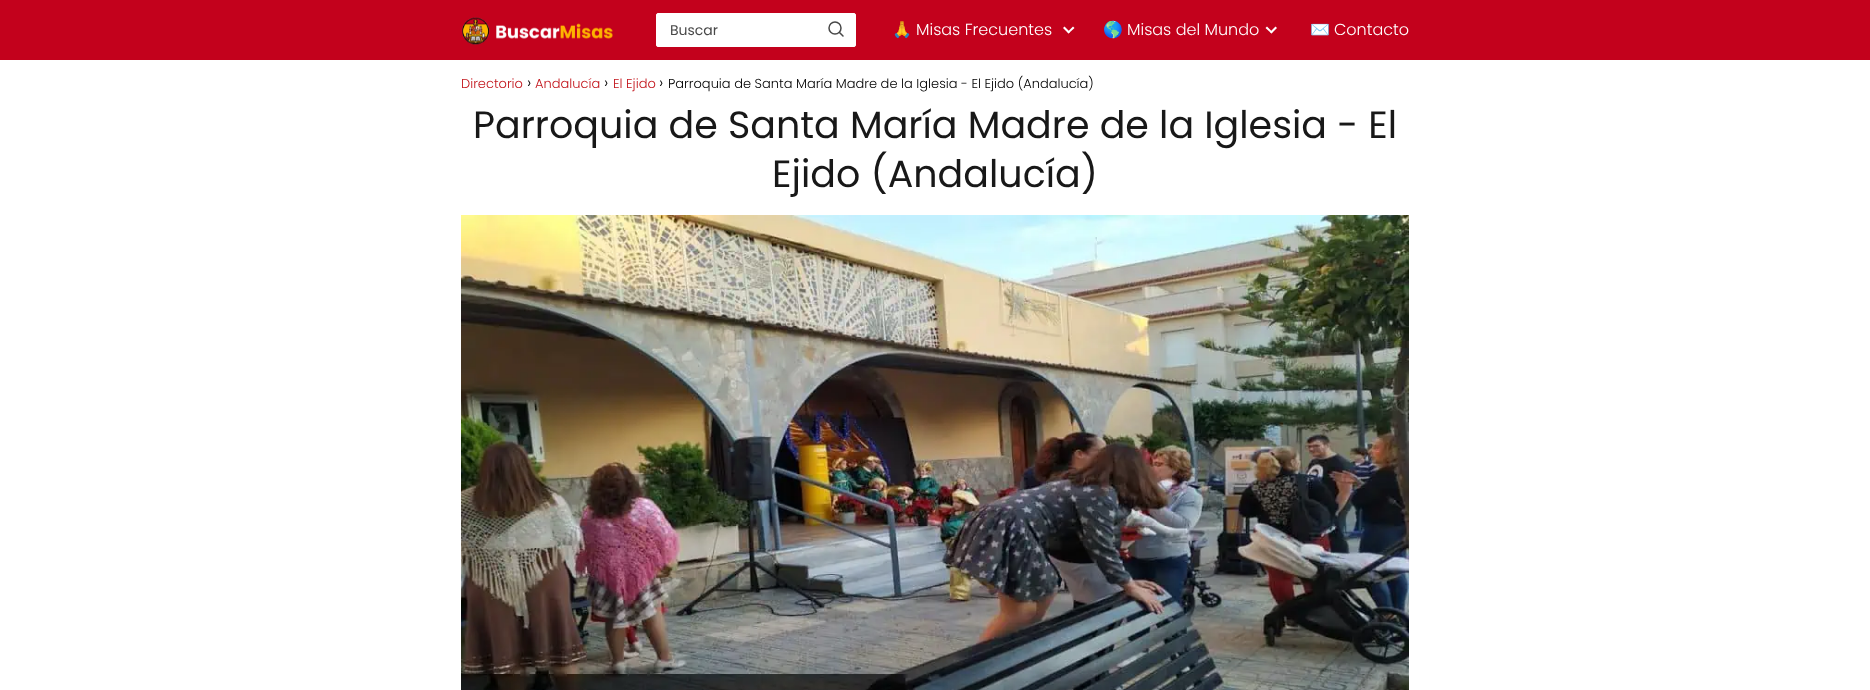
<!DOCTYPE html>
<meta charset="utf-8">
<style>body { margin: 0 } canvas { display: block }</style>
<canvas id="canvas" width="1870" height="690"></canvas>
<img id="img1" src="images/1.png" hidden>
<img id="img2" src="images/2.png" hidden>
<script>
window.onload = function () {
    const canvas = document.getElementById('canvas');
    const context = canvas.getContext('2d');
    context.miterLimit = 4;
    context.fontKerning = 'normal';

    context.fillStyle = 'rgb(255, 255, 255)';
    context.fillRect(0, 0, 1870, 690);
    context.fillStyle = 'rgb(195, 1, 28)';
    context.fillRect(0, 0, 1870, 60);
    context.drawImage(document.getElementById('img1'), 461, 17, 152, 28);
    context.fillStyle = 'rgb(255, 255, 255)';
    context.beginPath();
    context.roundRect(656.5, 13.5, 199, 33, 1.5);
    context.fill();
    context.strokeStyle = 'rgb(255, 255, 255)';
    context.stroke();
    context.beginPath();
    context.arc(835, 28, 6, 0, 2 * Math.PI);
    context.strokeStyle = 'rgb(72, 72, 72)';
    context.lineWidth = 1.5;
    context.stroke();
    context.beginPath();
    context.moveTo(843, 36);
    context.lineTo(839.5, 32.5);
    context.lineCap = 'round';
    context.lineJoin = 'round';
    context.stroke();
    context.beginPath();
    context.moveTo(1073, 26.5);
    context.lineTo(1074.5, 28);
    context.lineTo(1068.5, 33.5);
    context.lineTo(1067.5, 32);
    context.closePath();
    context.fill();
    context.beginPath();
    context.moveTo(1064.5, 26.5);
    context.lineTo(1070, 32);
    context.lineTo(1068.5, 33.5);
    context.lineTo(1063, 28);
    context.closePath();
    context.fill();
    context.beginPath();
    context.moveTo(1275.5, 26.5);
    context.lineTo(1277, 28);
    context.lineTo(1271.5, 33.5);
    context.lineTo(1270, 32);
    context.closePath();
    context.fill();
    context.beginPath();
    context.moveTo(1267, 26.5);
    context.lineTo(1272.5, 32);
    context.lineTo(1271.5, 33.5);
    context.lineTo(1265.5, 28);
    context.closePath();
    context.fill();
    context.drawImage(document.getElementById('img2'), 461, 215, 948, 475);
    context.font = '14px Poppins';
    context.fillStyle = 'rgb(72, 72, 72)';
    context.fillText('Buscar', 670, 35);
    context.font = '16px Noto Color Emoji';
    context.fillStyle = 'rgb(255, 255, 255)';
    context.fillText('🙏', 892, 35);
    context.font = '300 16px Poppins';
    context.fillText('Misas Frecuentes', 916, 35);
    context.font = '16px Noto Color Emoji';
    context.fillText('🌎', 1103, 35);
    context.font = '300 16px Poppins';
    context.fillText('Misas del Mundo', 1127, 35);
    context.font = '16px Noto Color Emoji';
    context.fillText('✉️', 1310, 35);
    context.font = '300 16px Poppins';
    context.fillText('Contacto', 1334, 35);
    context.font = '300 13px Poppins';
    context.fillStyle = 'rgb(194, 19, 26)';
    context.fillText('Directorio', 461, 88);
    context.font = '300 16px Poppins';
    context.fillStyle = 'rgb(0, 0, 0)';
    context.fillText('›', 527, 88);
    context.font = '300 13px Poppins';
    context.fillStyle = 'rgb(194, 19, 26)';
    context.fillText('Andalucía', 535, 88);
    context.font = '300 16px Poppins';
    context.fillStyle = 'rgb(0, 0, 0)';
    context.fillText('›', 604, 88);
    context.font = '300 13px Poppins';
    context.fillStyle = 'rgb(194, 19, 26)';
    context.fillText('El Ejido', 613, 88);
    context.font = '300 16px Poppins';
    context.fillStyle = 'rgb(0, 0, 0)';
    context.fillText('›', 659, 88);
    context.font = '300 13px Poppins';
    context.fillText('Parroquia de Santa María Madre de la Iglesia - El Ejido (Andalucía)', 668, 88);
    context.font = '38px Poppins';
    context.fillStyle = 'rgb(24, 24, 24)';
    context.fillText('Parroquia de Santa María Madre de la Iglesia - El', 473, 138);
    context.fillText('Ejido (Andalucía)', 772, 187);
};
</script>
